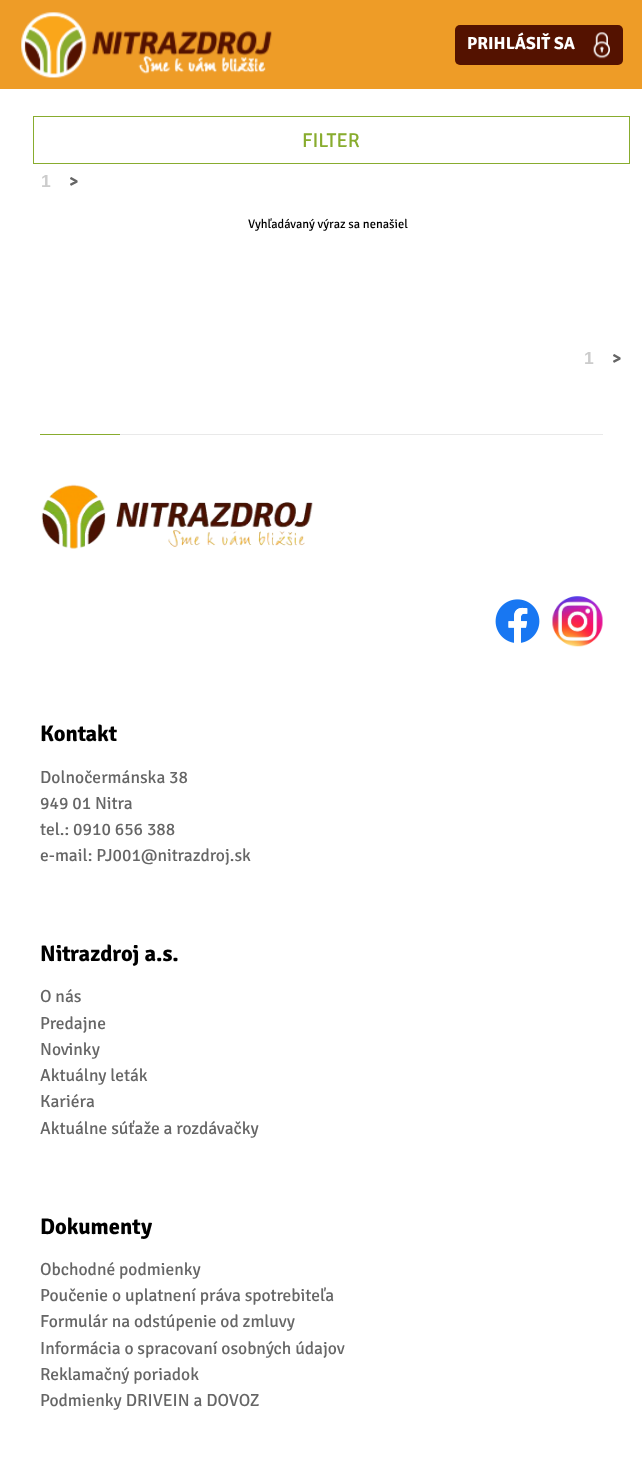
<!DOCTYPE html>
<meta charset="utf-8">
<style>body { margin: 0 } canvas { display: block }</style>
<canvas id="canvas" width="642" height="1463"></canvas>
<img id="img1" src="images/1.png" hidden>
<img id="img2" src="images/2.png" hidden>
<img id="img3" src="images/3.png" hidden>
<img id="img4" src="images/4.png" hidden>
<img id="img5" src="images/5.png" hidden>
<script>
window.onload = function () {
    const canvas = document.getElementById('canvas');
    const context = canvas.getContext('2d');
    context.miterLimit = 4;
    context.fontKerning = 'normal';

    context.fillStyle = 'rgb(255, 255, 255)';
    context.fillRect(0, 0, 642, 1463);
    context.fillStyle = 'rgb(238, 156, 39)';
    context.fillRect(0, 0, 642, 89);
    context.drawImage(document.getElementById('img1'), 21, 12, 251, 66);
    context.fillStyle = 'rgb(84, 18, 0)';
    context.beginPath();
    context.roundRect(455, 25, 168, 40, 5);
    context.fill();
    context.drawImage(document.getElementById('img2'), 593, 32, 17, 27);
    context.strokeStyle = 'rgb(136, 172, 46)';
    context.strokeRect(33.5, 116.5, 596, 47);
    context.fillStyle = 'rgb(136, 172, 46)';
    context.fillRect(40, 434, 80, 1);
    context.fillStyle = 'rgb(233, 233, 233)';
    context.fillRect(120, 434, 483, 1);
    context.drawImage(document.getElementById('img3'), 41, 484, 272, 65);
    context.drawImage(document.getElementById('img4'), 495, 599, 45, 44);
    context.drawImage(document.getElementById('img5'), 552, 596, 51, 51);
    context.font = 'bold 17.5px Signika';
    context.fillStyle = 'rgb(255, 255, 255)';
    context.fillText('PRIHLÁSIŤ SA', 467, 49);
    context.font = '20px Signika';
    context.fillStyle = 'rgb(136, 172, 46)';
    context.fillText('FILTER', 302, 147);
    context.font = 'bold 17.5px Liberation Sans';
    context.fillStyle = 'rgb(204, 204, 204)';
    context.fillText('1', 41, 187);
    context.font = 'bold 17.5px Signika';
    context.fillStyle = 'rgb(102, 102, 102)';
    context.fillText('>', 69, 187);
    context.font = '12.5px Signika';
    context.fillStyle = 'rgb(0, 0, 0)';
    context.fillText('Vyhľadávaný výraz sa nenašiel', 248, 228);
    context.font = 'bold 17.5px Liberation Sans';
    context.fillStyle = 'rgb(204, 204, 204)';
    context.fillText('1', 584, 364);
    context.font = 'bold 17.5px Signika';
    context.fillStyle = 'rgb(102, 102, 102)';
    context.fillText('>', 612, 364);
    context.font = 'bold 22.5px Signika';
    context.fillStyle = 'rgb(0, 0, 0)';
    context.fillText('Kontakt', 40, 741);
    context.font = '17.5px Signika';
    context.fillStyle = 'rgb(102, 102, 102)';
    context.fillText('Dolnočermánska 38', 40, 783);
    context.fillText('949 01 Nitra', 40, 809);
    context.fillText('tel.: 0910 656 388', 40, 835);
    context.fillText('e-mail: PJ001@nitrazdroj.sk', 40, 861);
    context.font = 'bold 22.5px Signika';
    context.fillStyle = 'rgb(0, 0, 0)';
    context.fillText('Nitrazdroj a.s.', 40, 961);
    context.font = '17.5px Signika';
    context.fillStyle = 'rgb(102, 102, 102)';
    context.fillText('O nás', 40, 1002);
    context.fillText('Predajne', 40, 1029);
    context.fillText('Novinky', 40, 1055);
    context.fillText('Aktuálny leták', 40, 1081);
    context.fillText('Kariéra', 40, 1107);
    context.fillText('Aktuálne súťaže a rozdávačky', 40, 1134);
    context.font = 'bold 22.5px Signika';
    context.fillStyle = 'rgb(0, 0, 0)';
    context.fillText('Dokumenty', 40, 1234);
    context.font = '17.5px Signika';
    context.fillStyle = 'rgb(102, 102, 102)';
    context.fillText('Obchodné podmienky', 40, 1275);
    context.fillText('Poučenie o uplatnení práva spotrebiteľa', 40, 1301);
    context.fillText('Formulár na odstúpenie od zmluvy', 40, 1327);
    context.fillText('Informácia o spracovaní osobných údajov', 40, 1354);
    context.fillText('Reklamačný poriadok', 40, 1380);
    context.fillText('Podmienky DRIVEIN a DOVOZ', 40, 1406);
};
</script>
